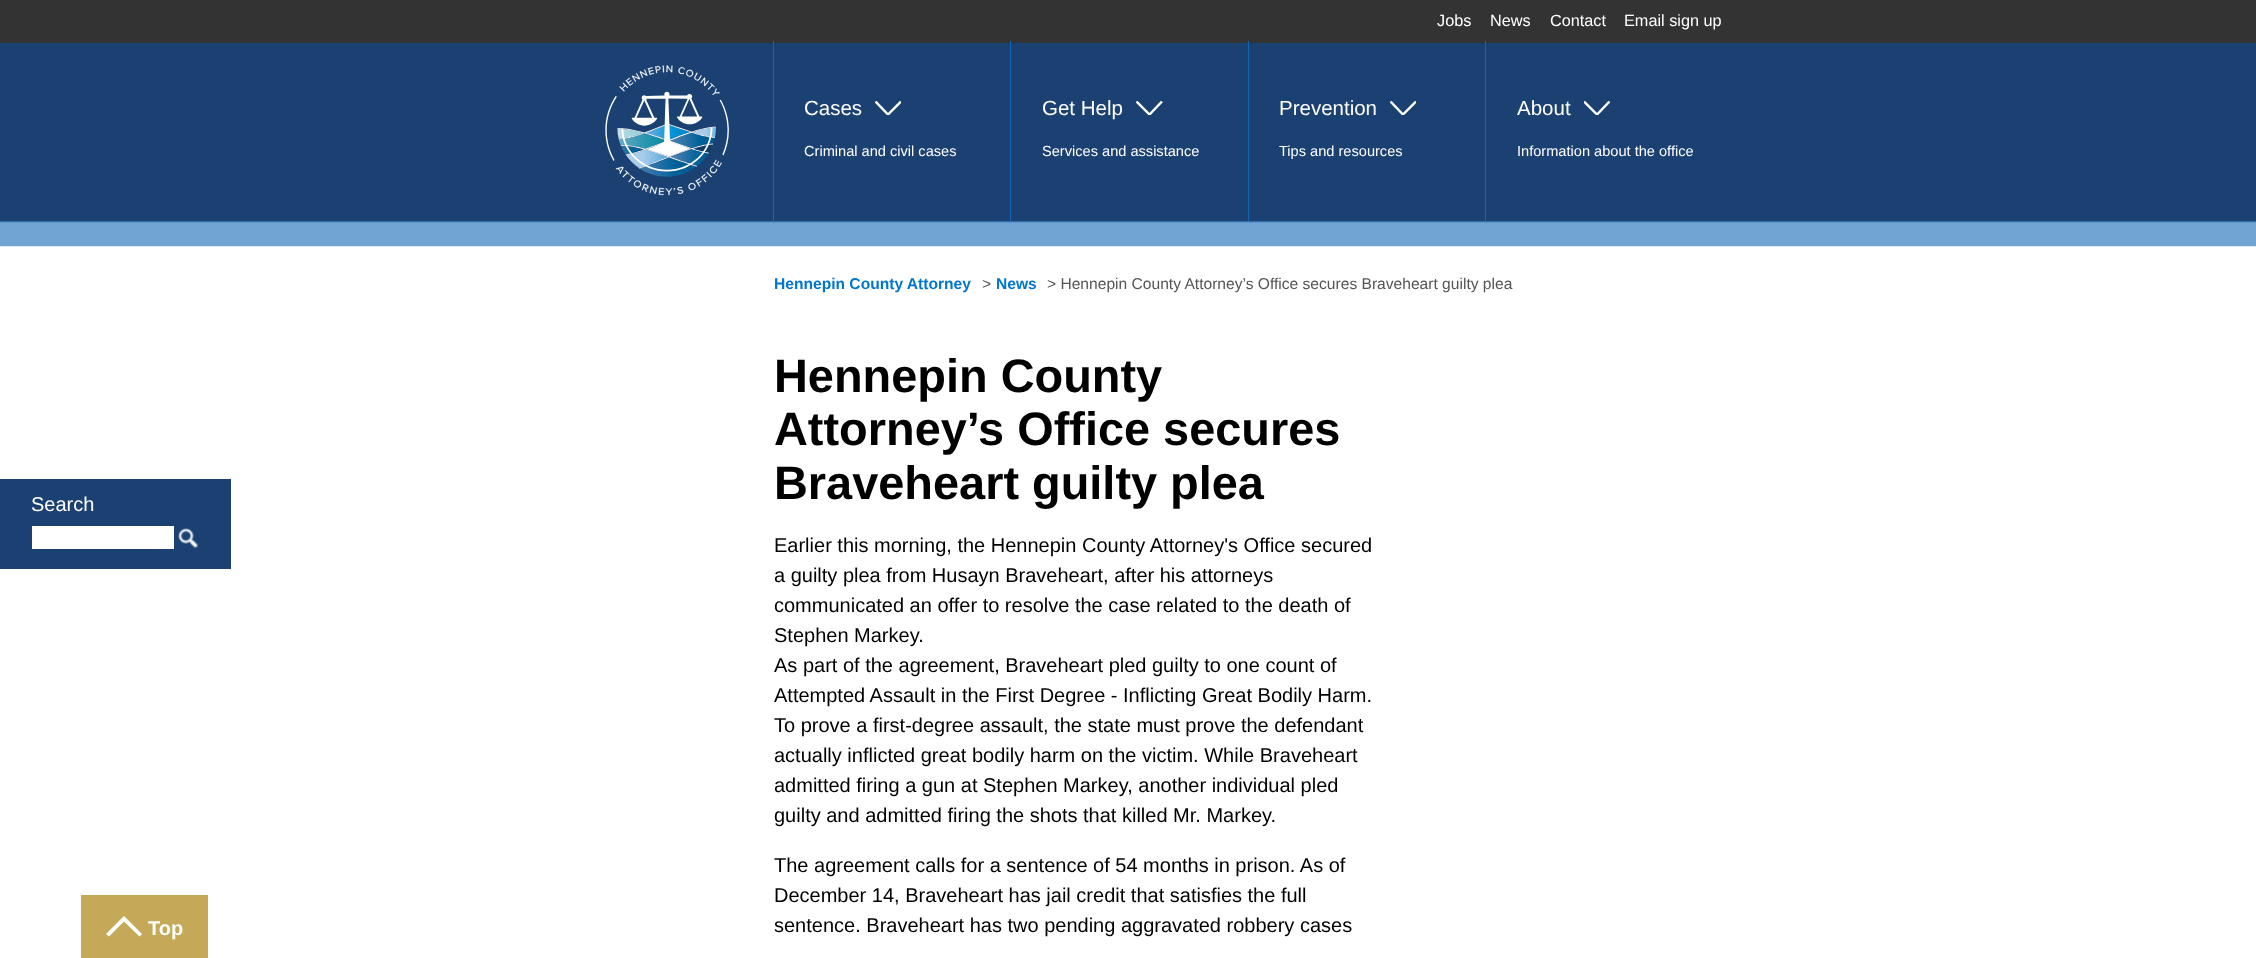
<!DOCTYPE html>
<meta charset="utf-8">
<style>body { margin: 0 } canvas { display: block }</style>
<canvas id="canvas" width="2256" height="958"></canvas>
<img id="img1" src="images/1.png" hidden>
<img id="img2" src="images/2.png" hidden>
<img id="img3" src="images/3.png" hidden>
<script>
window.onload = function () {
    const canvas = document.getElementById('canvas');
    const context = canvas.getContext('2d');
    context.miterLimit = 4;
    context.fontKerning = 'normal';

    context.fillStyle = 'rgb(255, 255, 255)';
    context.fillRect(0, 0, 2256, 958);
    context.drawImage(document.getElementById('img1'), 0, 43, 2256, 204);
    context.fillStyle = 'rgb(51, 51, 51)';
    context.fillRect(0, 0, 2256, 43);
    context.drawImage(document.getElementById('img2'), 605, 65, 124, 131);
    context.fillStyle = 'rgb(19, 104, 177)';
    context.fillRect(773, 41, 1, 180);
    context.save();
    context.beginPath();
    context.rect(875, 101, 26, 14);
    context.clip();
    context.beginPath();
    context.moveTo(901, 101.5);
    context.lineTo(888, 114.5);
    context.lineTo(875.5, 101.5);
    context.strokeStyle = 'rgb(255, 255, 255)';
    context.lineWidth = 2.4;
    context.stroke();
    context.restore();
    context.fillRect(1010, 41, 1, 180);
    context.save();
    context.beginPath();
    context.rect(1136, 101, 27, 14);
    context.clip();
    context.beginPath();
    context.moveTo(1162, 101.5);
    context.lineTo(1149.5, 114.5);
    context.lineTo(1136.5, 101.5);
    context.strokeStyle = 'rgb(255, 255, 255)';
    context.lineWidth = 2.4;
    context.stroke();
    context.restore();
    context.fillRect(1248, 41, 1, 180);
    context.save();
    context.beginPath();
    context.rect(1390, 101, 26, 14);
    context.clip();
    context.beginPath();
    context.moveTo(1416, 101.5);
    context.lineTo(1403, 114.5);
    context.lineTo(1390.5, 101.5);
    context.strokeStyle = 'rgb(255, 255, 255)';
    context.lineWidth = 2.4;
    context.stroke();
    context.restore();
    context.fillRect(1485, 41, 1, 180);
    context.save();
    context.beginPath();
    context.rect(1584, 101, 26, 14);
    context.clip();
    context.beginPath();
    context.moveTo(1609.5, 101.5);
    context.lineTo(1597, 114.5);
    context.lineTo(1584, 101.5);
    context.strokeStyle = 'rgb(255, 255, 255)';
    context.lineWidth = 2.4;
    context.stroke();
    context.restore();
    context.fillStyle = 'rgb(27, 65, 115)';
    context.fillRect(0, 479, 231, 90);
    context.fillStyle = 'rgb(255, 255, 255)';
    context.fillRect(32, 526, 142, 23);
    context.drawImage(document.getElementById('img3'), 178, 528, 20, 20);
    context.fillStyle = 'rgb(198, 169, 88)';
    context.fillRect(81, 895, 127, 63);
    context.fillStyle = 'rgb(255, 255, 255)';
    context.beginPath();
    context.moveTo(139.5, 936.5);
    context.lineTo(142, 934);
    context.lineTo(124, 916);
    context.lineTo(106, 934);
    context.lineTo(109, 936.5);
    context.lineTo(124, 921.5);
    context.closePath();
    context.fill();
    context.font = '16.25px Liberation Sans';
    context.fillText('Jobs', 1437, 26);
    context.fillText('News', 1490, 26);
    context.fillText('Contact', 1550, 26);
    context.fillText('Email sign up', 1624, 26);
    context.font = '20.5px Liberation Sans';
    context.fillText('Cases', 804, 115);
    context.font = '14.6px Liberation Sans';
    context.fillText('Criminal and civil cases', 804, 156);
    context.font = '20.5px Liberation Sans';
    context.fillText('Get Help', 1042, 115);
    context.font = '14.6px Liberation Sans';
    context.fillText('Services and assistance', 1042, 156);
    context.font = '20.5px Liberation Sans';
    context.fillText('Prevention', 1279, 115);
    context.font = '14.6px Liberation Sans';
    context.fillText('Tips and resources', 1279, 156);
    context.font = '20.5px Liberation Sans';
    context.fillText('About', 1517, 115);
    context.font = '14.6px Liberation Sans';
    context.fillText('Information about the office', 1517, 156);
    context.font = '20px Liberation Sans';
    context.fillText('Search', 31, 511);
    context.font = 'bold 15.6px Liberation Sans';
    context.fillStyle = 'rgb(0, 119, 204)';
    context.fillText('Hennepin County Attorney', 774, 289);
    context.font = '15.6px Liberation Sans';
    context.fillStyle = 'rgb(85, 85, 85)';
    context.fillText('>', 982, 289);
    context.font = 'bold 15.6px Liberation Sans';
    context.fillStyle = 'rgb(0, 119, 204)';
    context.fillText('News', 996, 289);
    context.font = '15.6px Liberation Sans';
    context.fillStyle = 'rgb(85, 85, 85)';
    context.fillText('> Hennepin County Attorney’s Office secures Braveheart guilty plea', 1047, 289);
    context.font = 'bold 46.9px Liberation Sans';
    context.fillStyle = 'rgb(0, 0, 0)';
    context.fillText('Hennepin County', 774, 392);
    context.fillText('Attorney’s Office secures', 774, 445);
    context.fillText('Braveheart guilty plea', 774, 499);
    context.font = '20px Liberation Sans';
    context.fillText('Earlier this morning, the Hennepin County Attorney\'s Office secured', 774, 552);
    context.fillText('a guilty plea from Husayn Braveheart, after his attorneys', 774, 582);
    context.fillText('communicated an offer to resolve the case related to the death of', 774, 612);
    context.fillText('Stephen Markey.', 774, 642);
    context.fillText('As part of the agreement, Braveheart pled guilty to one count of', 774, 672);
    context.fillText('Attempted Assault in the First Degree - Inflicting Great Bodily Harm.', 774, 702);
    context.fillText('To prove a first-degree assault, the state must prove the defendant', 774, 732);
    context.fillText('actually inflicted great bodily harm on the victim. While Braveheart', 774, 762);
    context.fillText('admitted firing a gun at Stephen Markey, another individual pled', 774, 792);
    context.fillText('guilty and admitted firing the shots that killed Mr. Markey.', 774, 822);
    context.fillText('The agreement calls for a sentence of 54 months in prison. As of', 774, 872);
    context.fillText('December 14, Braveheart has jail credit that satisfies the full', 774, 902);
    context.fillText('sentence. Braveheart has two pending aggravated robbery cases', 774, 932);
    context.font = 'bold 20px Liberation Sans';
    context.fillStyle = 'rgb(255, 255, 255)';
    context.fillText('Top', 148, 935);
};
</script>
